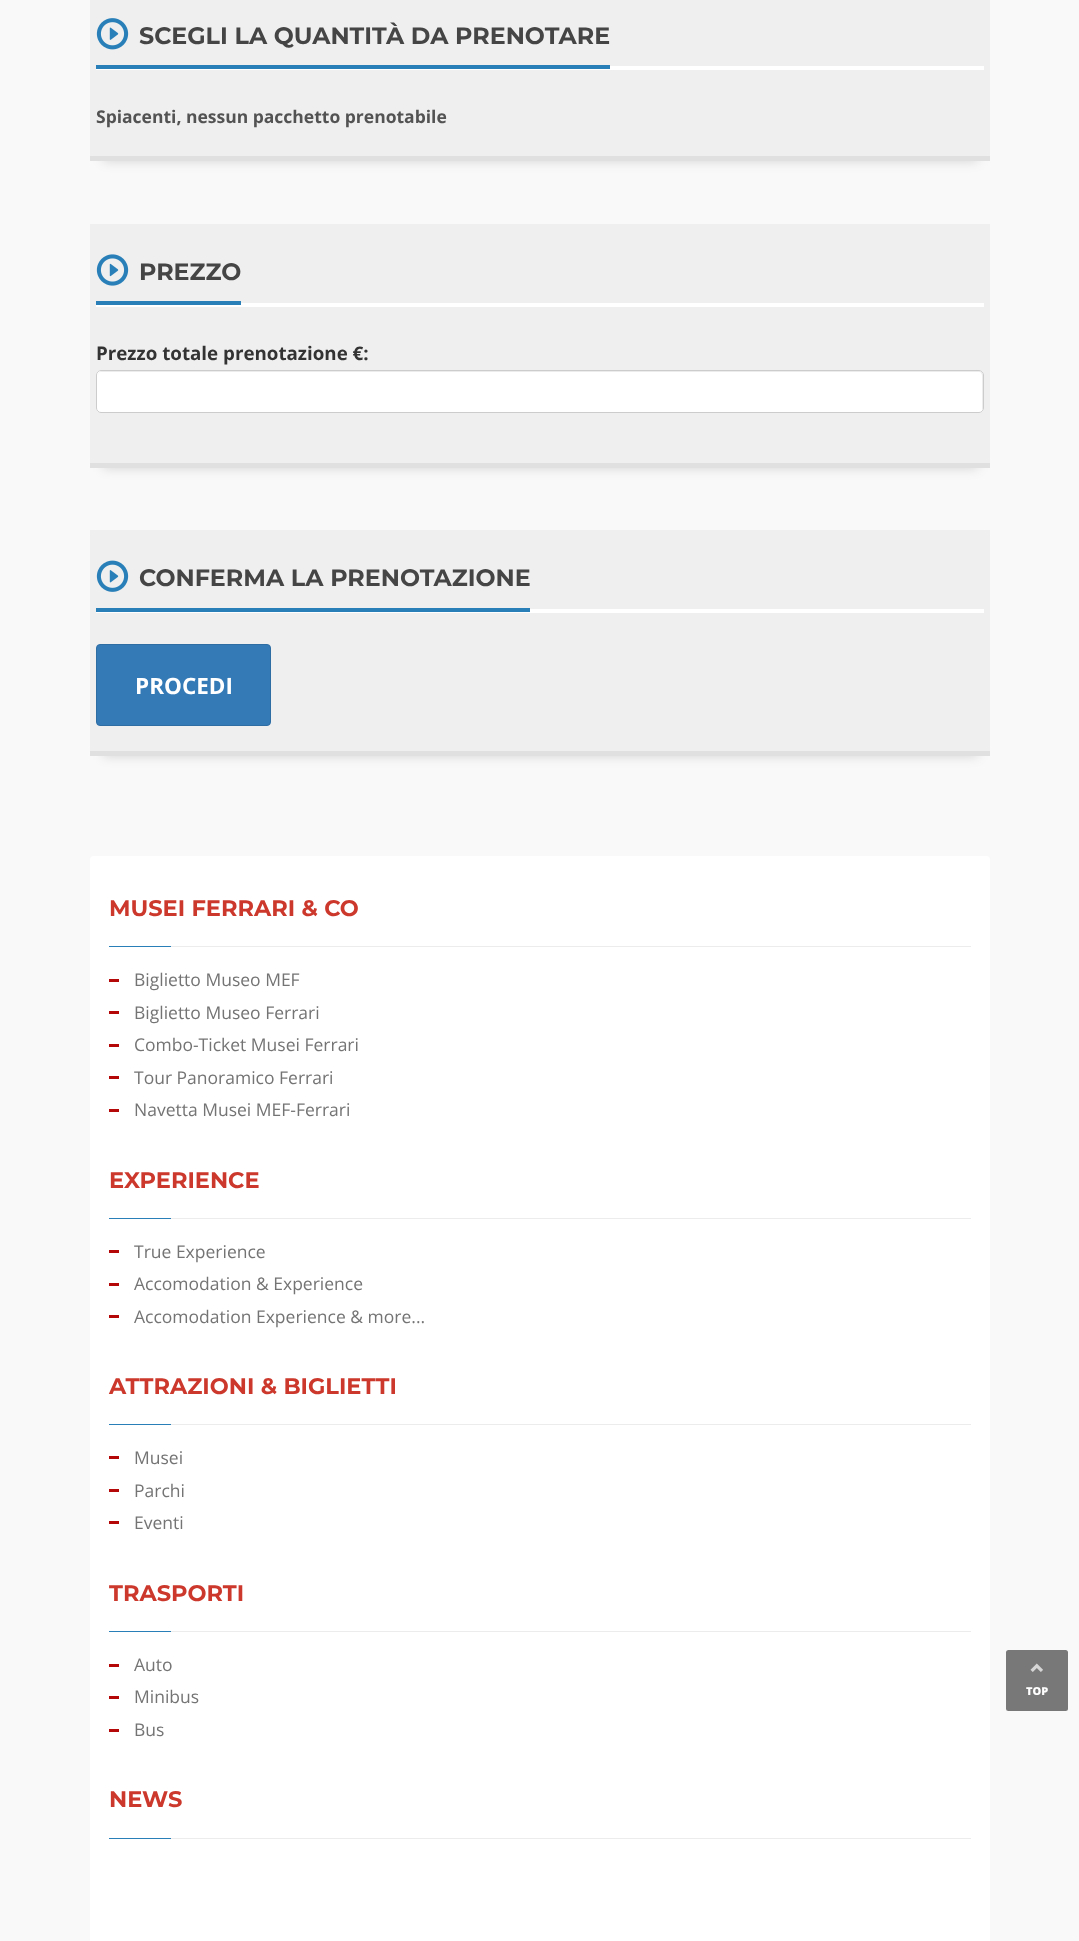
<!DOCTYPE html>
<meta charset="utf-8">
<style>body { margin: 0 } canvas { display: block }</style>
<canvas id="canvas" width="1079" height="1941"></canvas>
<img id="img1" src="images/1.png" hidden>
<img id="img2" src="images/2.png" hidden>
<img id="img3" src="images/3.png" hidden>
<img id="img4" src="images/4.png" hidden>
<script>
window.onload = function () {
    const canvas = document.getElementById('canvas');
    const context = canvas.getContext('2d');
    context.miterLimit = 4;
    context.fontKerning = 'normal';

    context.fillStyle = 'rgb(249, 249, 249)';
    context.fillRect(0, 0, 1079, 1941);
    context.fillStyle = 'rgba(0, 0, 0, 0.15)';
    context.filter = 'blur(6px)';
    context.beginPath();
    context.rect(103, 13, 875, 148);
    context.fill();
    context.filter = 'none';
    context.fillStyle = 'rgb(239, 239, 239)';
    context.fillRect(90, 0, 900, 156);
    context.fillStyle = 'rgb(224, 224, 224)';
    context.fillRect(90, 156, 900, 5);
    context.fillStyle = 'rgb(255, 255, 255)';
    context.fillRect(96, 66, 888, 4);
    context.fillStyle = 'rgb(41, 128, 185)';
    context.fillRect(96, 65, 514, 4);
    context.drawImage(document.getElementById('img1'), 96, 18, 33, 32);
    context.fillStyle = 'rgba(0, 0, 0, 0.15)';
    context.filter = 'blur(6px)';
    context.beginPath();
    context.rect(103, 249, 875, 219);
    context.fill();
    context.filter = 'none';
    context.fillStyle = 'rgb(239, 239, 239)';
    context.fillRect(90, 224, 900, 239);
    context.fillStyle = 'rgb(224, 224, 224)';
    context.fillRect(90, 463, 900, 5);
    context.fillStyle = 'rgb(255, 255, 255)';
    context.fillRect(96, 303, 888, 4);
    context.fillStyle = 'rgb(41, 128, 185)';
    context.fillRect(96, 301, 145, 4);
    context.drawImage(document.getElementById('img2'), 96, 254, 33, 32);
    context.fillStyle = 'rgb(255, 255, 255)';
    context.beginPath();
    context.roundRect(96, 370, 888, 43, 5);
    context.fill();
    context.fillStyle = 'rgb(236, 236, 236)';
    context.beginPath();
    context.moveTo(101, 372);
    context.lineTo(979, 372);
    context.bezierCurveTo(981, 372, 982, 374, 982, 376);
    context.lineTo(982, 410);
    context.bezierCurveTo(983, 409, 983, 408, 983, 407);
    context.lineTo(983, 375);
    context.bezierCurveTo(983, 373, 981, 371, 979, 371);
    context.lineTo(102, 371);
    context.bezierCurveTo(100, 371, 98, 373, 98, 375);
    context.lineTo(98, 376);
    context.bezierCurveTo(98, 374, 99, 372, 101, 372);
    context.closePath();
    context.fill();
    context.beginPath();
    context.roundRect(96.5, 370.5, 887, 42, 4.5);
    context.strokeStyle = 'rgb(204, 204, 204)';
    context.stroke();
    context.fillStyle = 'rgba(0, 0, 0, 0.15)';
    context.filter = 'blur(6px)';
    context.beginPath();
    context.rect(103, 555, 875, 201);
    context.fill();
    context.filter = 'none';
    context.fillStyle = 'rgb(239, 239, 239)';
    context.fillRect(90, 530, 900, 221);
    context.fillStyle = 'rgb(224, 224, 224)';
    context.fillRect(90, 751, 900, 5);
    context.fillStyle = 'rgb(255, 255, 255)';
    context.fillRect(96, 609, 888, 4);
    context.fillStyle = 'rgb(41, 128, 185)';
    context.fillRect(96, 608, 434, 4);
    context.drawImage(document.getElementById('img3'), 96, 560, 33, 32);
    context.fillStyle = 'rgb(51, 122, 183)';
    context.beginPath();
    context.roundRect(96.5, 644.5, 174, 81, 3.5);
    context.fill();
    context.strokeStyle = 'rgb(46, 109, 164)';
    context.stroke();
    context.fillStyle = 'rgb(255, 255, 255)';
    context.beginPath();
    context.roundRect(90, 856, 900, 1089, 4);
    context.fill();
    context.fillStyle = 'rgb(41, 128, 185)';
    context.fillRect(109, 946, 62, 1);
    context.fillStyle = 'rgb(236, 236, 236)';
    context.fillRect(171, 946, 800, 1);
    context.fillStyle = 'rgb(180, 7, 7)';
    context.fillRect(109, 979, 10, 3);
    context.fillRect(109, 1011, 10, 3);
    context.fillRect(109, 1044, 10, 3);
    context.fillRect(109, 1076, 10, 3);
    context.fillRect(109, 1109, 10, 3);
    context.fillStyle = 'rgb(41, 128, 185)';
    context.fillRect(109, 1218, 62, 1);
    context.fillStyle = 'rgb(236, 236, 236)';
    context.fillRect(171, 1218, 800, 1);
    context.fillStyle = 'rgb(180, 7, 7)';
    context.fillRect(109, 1250, 10, 3);
    context.fillRect(109, 1283, 10, 3);
    context.fillRect(109, 1315, 10, 3);
    context.fillStyle = 'rgb(41, 128, 185)';
    context.fillRect(109, 1424, 62, 1);
    context.fillStyle = 'rgb(236, 236, 236)';
    context.fillRect(171, 1424, 800, 1);
    context.fillStyle = 'rgb(180, 7, 7)';
    context.fillRect(109, 1456, 10, 3);
    context.fillRect(109, 1489, 10, 3);
    context.fillRect(109, 1521, 10, 3);
    context.fillStyle = 'rgb(41, 128, 185)';
    context.fillRect(109, 1631, 62, 1);
    context.fillStyle = 'rgb(236, 236, 236)';
    context.fillRect(171, 1631, 800, 1);
    context.fillStyle = 'rgb(180, 7, 7)';
    context.fillRect(109, 1664, 10, 3);
    context.fillRect(109, 1696, 10, 3);
    context.fillRect(109, 1729, 10, 3);
    context.fillStyle = 'rgb(41, 128, 185)';
    context.fillRect(109, 1838, 62, 1);
    context.fillStyle = 'rgb(236, 236, 236)';
    context.fillRect(171, 1838, 800, 1);
    context.fillStyle = 'rgb(120, 120, 120)';
    context.beginPath();
    context.roundRect(1006, 1650, 62, 61, 2.5);
    context.fill();
    context.drawImage(document.getElementById('img4'), 1030, 1663, 13, 9);
    context.font = 'bold 23.75px Montserrat';
    context.fillStyle = 'rgb(69, 69, 69)';
    context.fillText('SCEGLI LA QUANTITÀ DA PRENOTARE', 139, 44);
    context.font = 'bold 17.5px Open Sans';
    context.fillStyle = 'rgb(83, 83, 83)';
    context.fillText('Spiacenti, nessun pacchetto prenotabile', 96, 123);
    context.font = 'bold 23.75px Montserrat';
    context.fillStyle = 'rgb(69, 69, 69)';
    context.fillText('PREZZO', 139, 280);
    context.font = 'bold 18.75px Open Sans';
    context.fillStyle = 'rgb(51, 51, 51)';
    context.fillText('Prezzo totale prenotazione €:', 96, 360);
    context.font = 'bold 23.75px Montserrat';
    context.fillStyle = 'rgb(69, 69, 69)';
    context.fillText('CONFERMA LA PRENOTAZIONE', 139, 586);
    context.font = 'bold 22.5px Open Sans';
    context.fillStyle = 'rgb(255, 255, 255)';
    context.fillText('PROCEDI', 135, 694);
    context.font = 'bold 22.5px Montserrat';
    context.fillStyle = 'rgb(204, 56, 44)';
    context.fillText('MUSEI FERRARI & CO', 109, 916);
    context.font = '17.5px Open Sans';
    context.fillStyle = 'rgb(116, 116, 116)';
    context.fillText('Biglietto Museo MEF', 134, 986);
    context.fillText('Biglietto Museo Ferrari', 134, 1019);
    context.fillText('Combo-Ticket Musei Ferrari', 134, 1051);
    context.fillText('Tour Panoramico Ferrari', 134, 1084);
    context.fillText('Navetta Musei MEF-Ferrari', 134, 1116);
    context.font = 'bold 22.5px Montserrat';
    context.fillStyle = 'rgb(204, 56, 44)';
    context.fillText('EXPERIENCE', 109, 1188);
    context.font = '17.5px Open Sans';
    context.fillStyle = 'rgb(116, 116, 116)';
    context.fillText('True Experience', 134, 1258);
    context.fillText('Accomodation & Experience', 134, 1290);
    context.fillText('Accomodation Experience & more...', 134, 1323);
    context.font = 'bold 22.5px Montserrat';
    context.fillStyle = 'rgb(204, 56, 44)';
    context.fillText('ATTRAZIONI & BIGLIETTI', 109, 1394);
    context.font = '17.5px Open Sans';
    context.fillStyle = 'rgb(116, 116, 116)';
    context.fillText('Musei', 134, 1464);
    context.fillText('Parchi', 134, 1497);
    context.fillText('Eventi', 134, 1529);
    context.font = 'bold 22.5px Montserrat';
    context.fillStyle = 'rgb(204, 56, 44)';
    context.fillText('TRASPORTI', 109, 1601);
    context.font = '17.5px Open Sans';
    context.fillStyle = 'rgb(116, 116, 116)';
    context.fillText('Auto', 134, 1671);
    context.fillText('Minibus', 134, 1703);
    context.fillText('Bus', 134, 1736);
    context.font = 'bold 22.5px Montserrat';
    context.fillStyle = 'rgb(204, 56, 44)';
    context.fillText('NEWS', 109, 1807);
    context.font = '800 11px Open Sans';
    context.fillStyle = 'rgb(255, 255, 255)';
    context.fillText('TOP', 1026, 1695);
};
</script>
